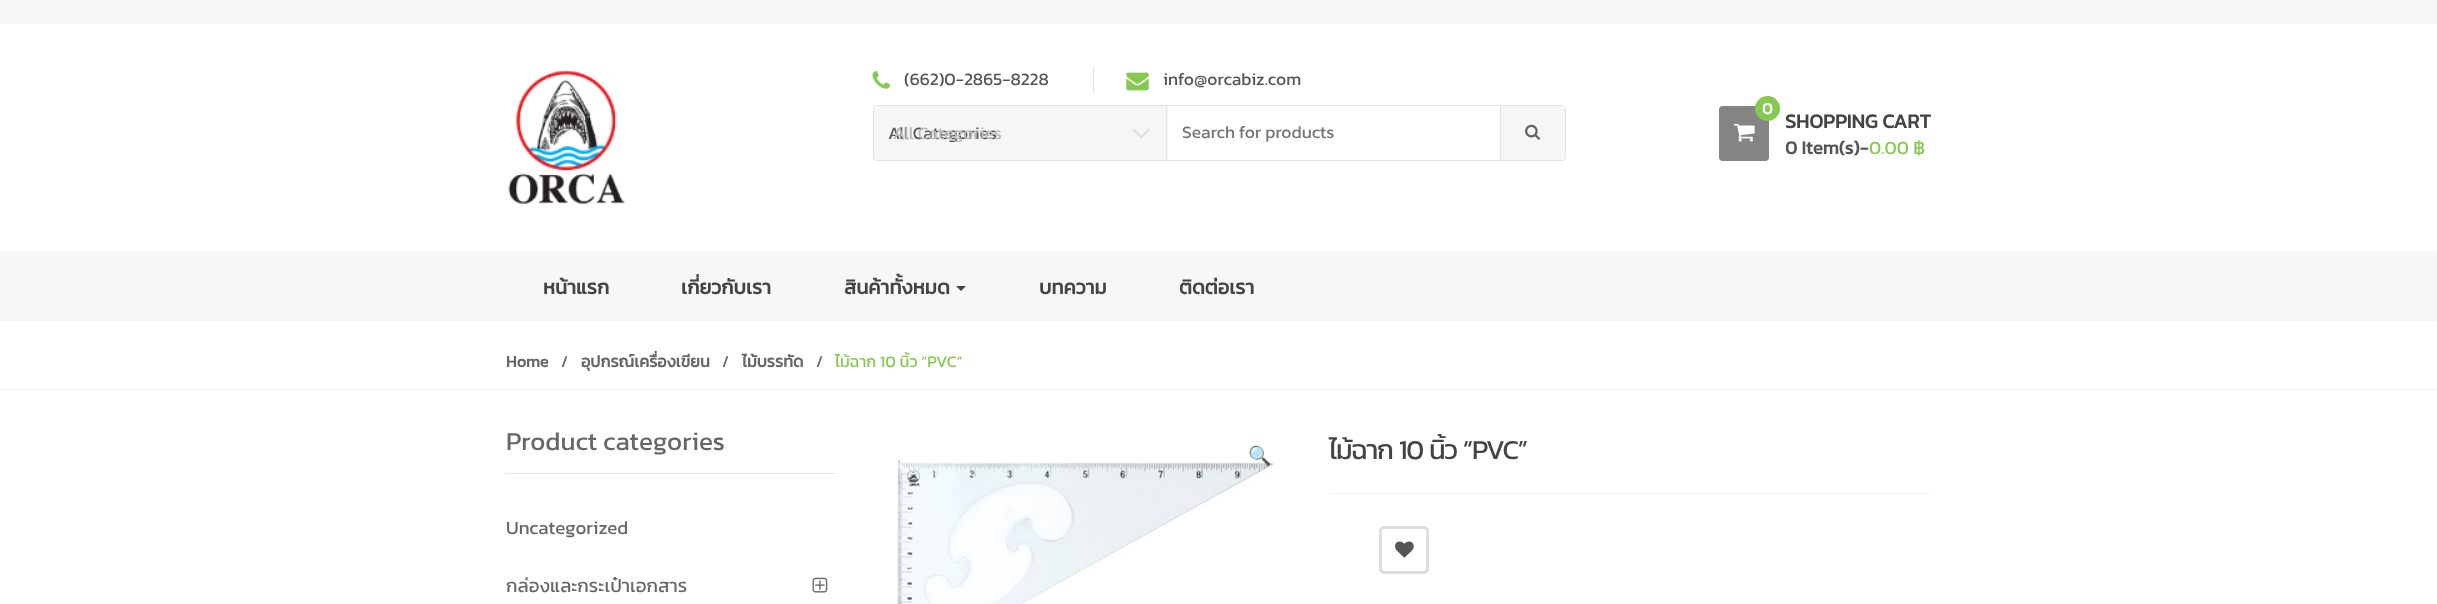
<!DOCTYPE html>
<meta charset="utf-8">
<style>body { margin: 0 } canvas { display: block }</style>
<canvas id="canvas" width="2437" height="604"></canvas>
<img id="img1" src="images/1.png" hidden>
<img id="img2" src="images/2.png" hidden>
<img id="img3" src="images/3.png" hidden>
<img id="img4" src="images/4.png" hidden>
<img id="img5" src="images/5.png" hidden>
<img id="img6" src="images/6.png" hidden>
<img id="img7" src="images/7.png" hidden>
<img id="img8" src="images/8.png" hidden>
<img id="img9" src="images/9.png" hidden>
<script>
window.onload = function () {
    const canvas = document.getElementById('canvas');
    const context = canvas.getContext('2d');
    context.miterLimit = 4;
    context.fontKerning = 'normal';

    context.fillStyle = 'rgb(255, 255, 255)';
    context.fillRect(0, 0, 2437, 604);
    context.fillStyle = 'rgb(247, 247, 247)';
    context.fillRect(0, 0, 2437, 24);
    context.drawImage(document.getElementById('img1'), 508, 70, 117, 134);
    context.fillStyle = 'rgb(226, 226, 226)';
    context.fillRect(1093, 68, 1, 25);
    context.drawImage(document.getElementById('img2'), 872, 71, 19, 18);
    context.drawImage(document.getElementById('img3'), 1126, 72, 23, 19);
    context.beginPath();
    context.roundRect(873.5, 105.5, 692, 55, 3.5);
    context.strokeStyle = 'rgb(226, 226, 226)';
    context.stroke();
    context.fillStyle = 'rgb(246, 246, 246)';
    context.beginPath();
    context.roundRect(874, 106, 294, 54, [5, 0, 0, 5]);
    context.fill();
    context.fillStyle = 'rgb(226, 226, 226)';
    context.fillRect(1166, 106, 1, 54);
    context.drawImage(document.getElementById('img4'), 1132, 128, 18, 11);
    context.fillRect(1500, 106, 1, 54);
    context.fillStyle = 'rgb(246, 246, 246)';
    context.beginPath();
    context.roundRect(1501, 106, 64, 54, [0, 5, 5, 0]);
    context.fill();
    context.drawImage(document.getElementById('img5'), 1525, 124, 16, 16);
    context.fillStyle = 'rgb(132, 132, 132)';
    context.beginPath();
    context.roundRect(1719, 106, 50, 55, 4);
    context.fill();
    context.fillStyle = 'rgb(133, 201, 79)';
    context.beginPath();
    context.arc(1767.5, 108.5, 12.5, 0, 2 * Math.PI);
    context.fill();
    context.drawImage(document.getElementById('img6'), 1733, 123, 22, 19);
    context.fillStyle = 'rgb(247, 247, 247)';
    context.fillRect(0, 251, 2437, 70);
    context.fillStyle = 'rgb(68, 68, 68)';
    context.beginPath();
    context.moveTo(956, 286);
    context.lineTo(966, 286);
    context.lineTo(961, 291);
    context.closePath();
    context.fill();
    context.fillStyle = 'rgb(242, 242, 242)';
    context.fillRect(0, 389, 2437, 1);
    context.fillStyle = 'rgb(229, 229, 229)';
    context.fillRect(506, 473, 329, 1);
    context.drawImage(document.getElementById('img7'), 812, 577, 16, 16);
    context.drawImage(document.getElementById('img8'), 897, 460, 377, 144);
    context.fillStyle = 'rgb(242, 242, 242)';
    context.fillRect(1329, 493, 602, 1);
    context.beginPath();
    context.roundRect(1380.5, 527.5, 47, 45, 3.5);
    context.strokeStyle = 'rgb(221, 221, 221)';
    context.lineWidth = 3;
    context.stroke();
    context.drawImage(document.getElementById('img9'), 1395, 541, 19, 17);
    context.font = '17.5px Kanit';
    context.fillStyle = 'rgb(85, 85, 85)';
    context.fillText('(662)0-2865-8228', 904, 85);
    context.fillText('info@orcabiz.com', 1163, 85);
    context.fillText('All Categories', 888, 139);
    context.fillStyle = 'rgb(187, 187, 187)';
    context.fillText('All Categories', 893, 139);
    context.fillStyle = 'rgb(117, 117, 117)';
    context.fillText('Search for products', 1182, 138);
    context.font = 'bold 16.25px Kanit';
    context.fillStyle = 'rgb(255, 255, 255)';
    context.fillText('0', 1762, 114);
    context.font = 'bold 20px Kanit';
    context.fillStyle = 'rgb(68, 68, 68)';
    context.fillText('SHOPPING CART', 1785, 128);
    context.font = 'bold 18.75px Kanit';
    context.fillStyle = 'rgb(85, 85, 85)';
    context.fillText('0 Item(s)-', 1785, 154);
    context.font = '18.75px Kanit';
    context.fillStyle = 'rgb(133, 201, 79)';
    context.fillText('0.00 ฿', 1869, 154);
    context.font = 'bold 20px Kanit';
    context.fillStyle = 'rgb(68, 68, 68)';
    context.fillText('หน้าแรก', 543, 294);
    context.fillText('เกี่ยวกับเรา', 681, 294);
    context.fillText('สินค้าทั้งหมด', 844, 294);
    context.fillText('บทความ', 1039, 294);
    context.fillText('ติดต่อเรา', 1179, 294);
    context.font = 'bold 16.25px Kanit';
    context.fillStyle = 'rgb(102, 102, 102)';
    context.fillText('Home', 506, 367);
    context.font = '16.25px Kanit';
    context.fillText('/', 561, 367);
    context.font = 'bold 16.25px Kanit';
    context.fillText('อุปกรณ์เครื่องเขียน', 581, 367);
    context.font = '16.25px Kanit';
    context.fillText('/', 722, 367);
    context.font = 'bold 16.25px Kanit';
    context.fillText('ไม้บรรทัด', 742, 367);
    context.font = '16.25px Kanit';
    context.fillText('/', 816, 367);
    context.fillStyle = 'rgb(133, 201, 79)';
    context.fillText('ไม้ฉาก 10 นิ้ว “PVC”', 835, 367);
    context.font = '26px Kanit';
    context.fillStyle = 'rgb(102, 102, 102)';
    context.fillText('Product categories', 506, 450);
    context.font = '18.75px Kanit';
    context.fillText('Uncategorized', 506, 534);
    context.fillText('กล่องและกระเป๋าเอกสาร', 506, 592);
    context.font = 'bold 18.75px Noto Color Emoji';
    context.fillStyle = 'rgb(85, 85, 85)';
    context.fillText('🔍', 1248, 462);
    context.letterSpacing = '-1.25px';
    context.wordSpacing = '1px';
    context.font = '27.5px Kanit';
    context.fillStyle = 'rgb(68, 68, 68)';
    context.fillText('ไม้ฉาก 10 นิ้ว “PVC”', 1329, 459);
};
</script>
